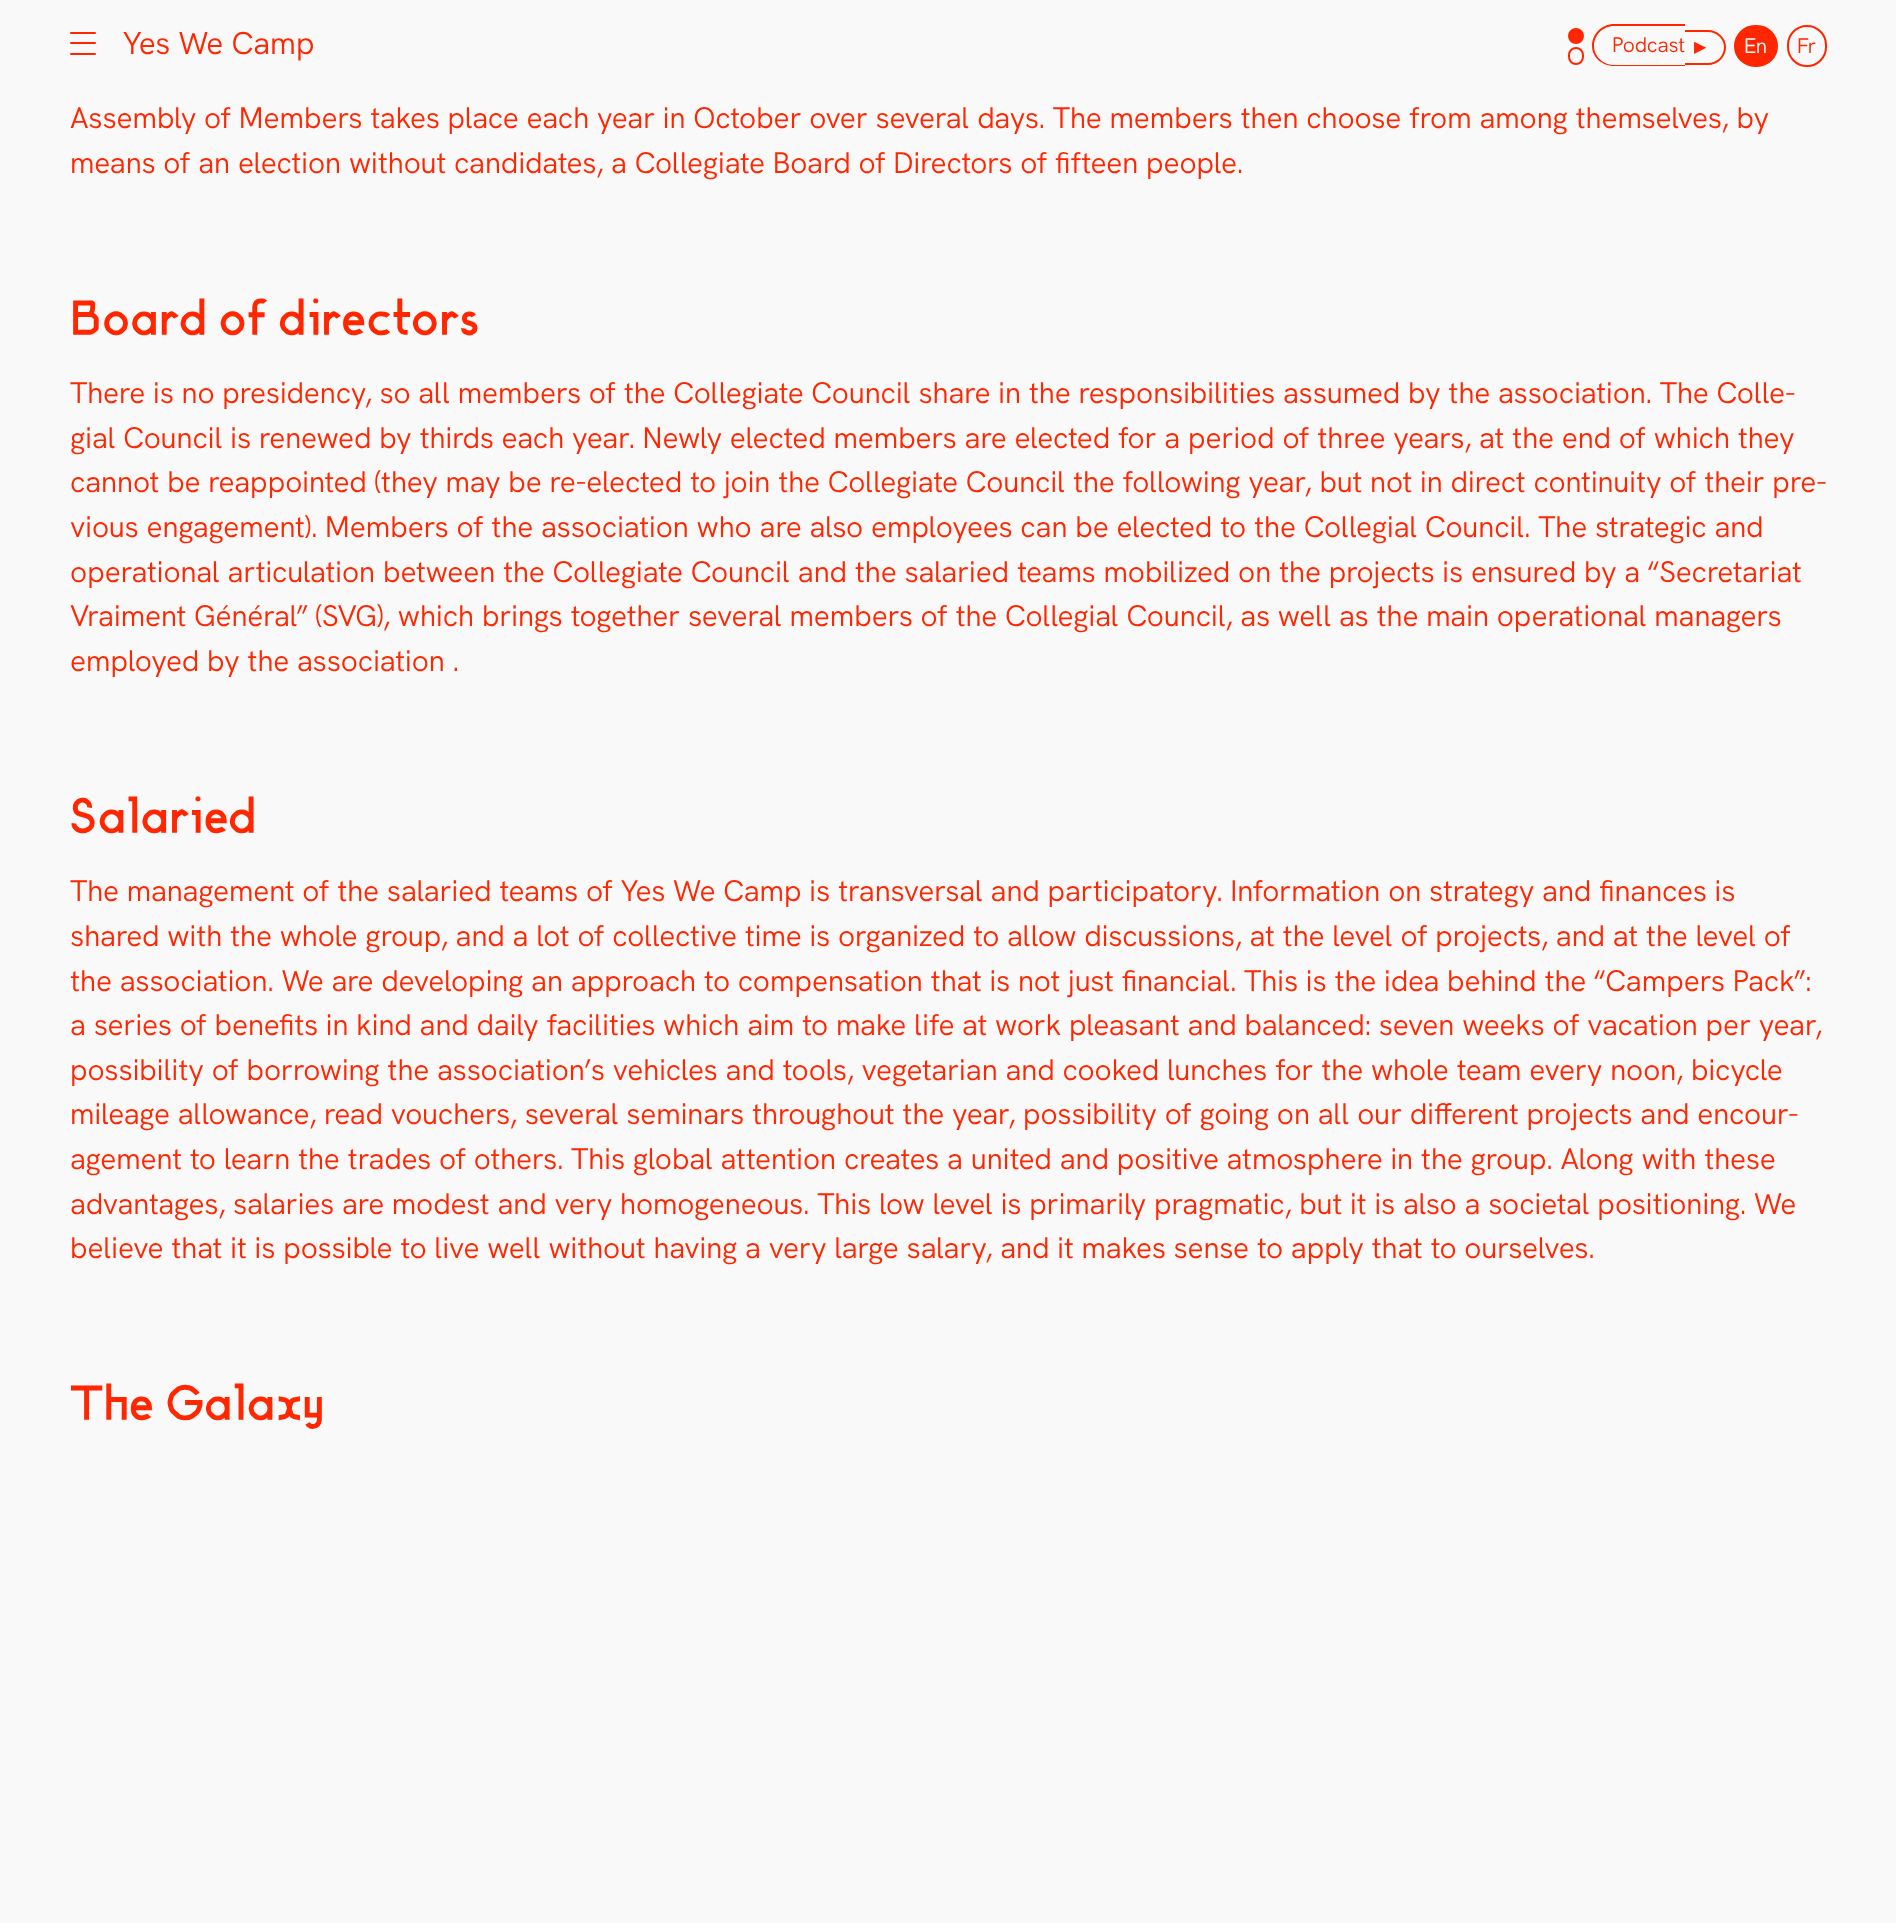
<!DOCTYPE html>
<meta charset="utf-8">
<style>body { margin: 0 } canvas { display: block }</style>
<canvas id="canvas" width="1896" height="1923"></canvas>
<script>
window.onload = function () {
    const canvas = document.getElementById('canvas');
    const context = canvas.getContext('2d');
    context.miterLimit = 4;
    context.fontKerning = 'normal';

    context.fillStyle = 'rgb(249, 249, 249)';
    context.fillRect(0, 0, 1896, 1923);
    context.fillStyle = 'rgb(255, 38, 0)';
    context.beginPath();
    context.roundRect(70, 42, 26, 2, 1);
    context.fill();
    context.beginPath();
    context.roundRect(70, 32, 26, 2, 1);
    context.fill();
    context.beginPath();
    context.roundRect(70, 53, 26, 2, 1);
    context.fill();
    context.beginPath();
    context.arc(1576, 36, 7, 0, 2 * Math.PI);
    context.fill();
    context.strokeStyle = 'rgb(255, 38, 0)';
    context.lineWidth = 2;
    context.stroke();
    context.beginPath();
    context.roundRect(1569, 48, 14, 16, 7);
    context.stroke();
    context.beginPath();
    context.moveTo(1614, 24);
    context.lineTo(1685, 24);
    context.lineTo(1685, 66);
    context.lineTo(1614, 66);
    context.bezierCurveTo(1602, 66, 1592, 57, 1592, 46);
    context.bezierCurveTo(1592, 34, 1602, 24, 1614, 24);
    context.closePath();
    context.moveTo(1614, 26);
    context.lineTo(1685, 26);
    context.lineTo(1685, 65);
    context.lineTo(1614, 65);
    context.bezierCurveTo(1603, 65, 1594, 56, 1594, 46);
    context.bezierCurveTo(1594, 35, 1603, 26, 1614, 26);
    context.closePath();
    context.fill('evenodd');
    context.beginPath();
    context.moveTo(1685, 30);
    context.lineTo(1708, 30);
    context.bezierCurveTo(1718, 30, 1726, 38, 1726, 47);
    context.bezierCurveTo(1726, 57, 1718, 65, 1708, 65);
    context.lineTo(1685, 65);
    context.closePath();
    context.moveTo(1685, 32);
    context.lineTo(1708, 32);
    context.bezierCurveTo(1717, 32, 1724, 39, 1724, 47);
    context.bezierCurveTo(1724, 56, 1717, 63, 1708, 63);
    context.lineTo(1685, 63);
    context.closePath();
    context.fill('evenodd');
    context.beginPath();
    context.roundRect(1735, 26, 42, 40, 20);
    context.fill();
    context.stroke();
    context.beginPath();
    context.roundRect(1788, 26, 38, 40, 19);
    context.stroke();
    context.font = '31.5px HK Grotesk';
    context.fillText('Yes We Camp', 123, 54);
    context.font = '21px HK Grotesk';
    context.fillText('Podcast', 1612, 52);
    context.font = '16px DejaVu Sans';
    context.fillText('▶︎', 1694, 52);
    context.font = '21px HK Grotesk';
    context.fillStyle = 'rgb(249, 249, 249)';
    context.fillText('En', 1744, 53);
    context.fillStyle = 'rgb(255, 38, 0)';
    context.fillText('Fr', 1797, 53);
    context.font = '29.75px HK Grotesk';
    context.fillText('Assembly of Members takes place each year in October over several days. The members then choose from among themselves, by', 70, 128);
    context.fillText('means of an election without candidates, a Collegiate Board of Directors of fifteen people.', 70, 173);
    context.font = 'bold 45.5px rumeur';
    context.fillText('Board of directors', 70, 335);
    context.font = '29.75px HK Grotesk';
    context.fillText('There is no presidency, so all members of the Collegiate Council share in the responsibilities assumed by the association. The Colle-', 70, 403);
    context.fillText('gial Council is renewed by thirds each year. Newly elected members are elected for a period of three years, at the end of which they', 70, 448);
    context.fillText('cannot be reappointed (they may be re-elected to join the Collegiate Council the following year, but not in direct continuity of their pre-', 70, 492);
    context.fillText('vious engagement). Members of the association who are also employees can be elected to the Collegial Council. The strategic and', 70, 537);
    context.fillText('operational articulation between the Collegiate Council and the salaried teams mobilized on the projects is ensured by a “Secretariat', 70, 582);
    context.fillText('Vraiment Général” (SVG), which brings together several members of the Collegial Council, as well as the main operational managers', 70, 626);
    context.fillText('employed by the association .', 70, 671);
    context.font = 'bold 45.5px rumeur';
    context.fillText('Salaried', 70, 833);
    context.font = '29.75px HK Grotesk';
    context.fillText('The management of the salaried teams of Yes We Camp is transversal and participatory. Information on strategy and finances is', 70, 901);
    context.fillText('shared with the whole group, and a lot of collective time is organized to allow discussions, at the level of projects, and at the level of', 70, 946);
    context.fillText('the association. We are developing an approach to compensation that is not just financial. This is the idea behind the “Campers Pack”:', 70, 991);
    context.fillText('a series of benefits in kind and daily facilities which aim to make life at work pleasant and balanced: seven weeks of vacation per year,', 70, 1035);
    context.fillText('possibility of borrowing the association’s vehicles and tools, vegetarian and cooked lunches for the whole team every noon, bicycle', 70, 1080);
    context.fillText('mileage allowance, read vouchers, several seminars throughout the year, possibility of going on all our different projects and encour-', 70, 1124);
    context.fillText('agement to learn the trades of others. This global attention creates a united and positive atmosphere in the group. Along with these', 70, 1169);
    context.fillText('advantages, salaries are modest and very homogeneous. This low level is primarily pragmatic, but it is also a societal positioning. We', 70, 1214);
    context.fillText('believe that it is possible to live well without having a very large salary, and it makes sense to apply that to ourselves.', 70, 1258);
    context.font = 'bold 45.5px rumeur';
    context.fillText('The Galaxy', 70, 1420);
};
</script>
